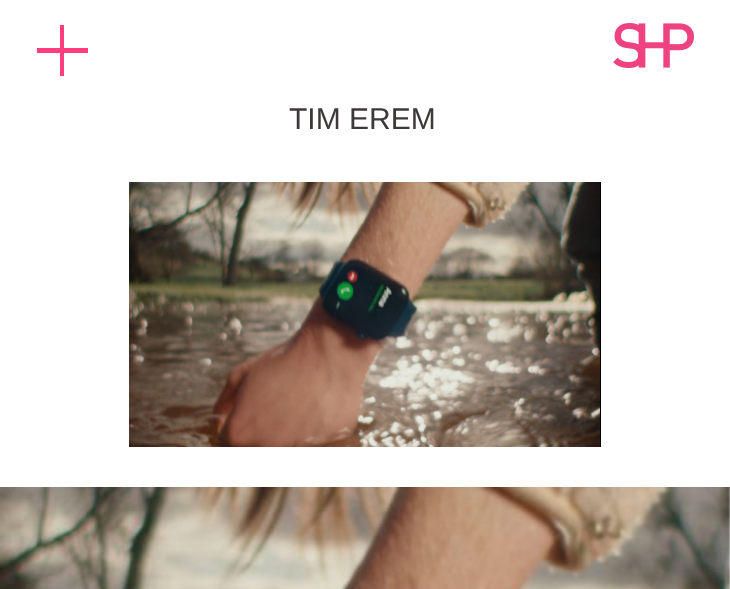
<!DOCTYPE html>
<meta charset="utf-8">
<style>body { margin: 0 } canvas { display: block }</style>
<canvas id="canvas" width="730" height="589"></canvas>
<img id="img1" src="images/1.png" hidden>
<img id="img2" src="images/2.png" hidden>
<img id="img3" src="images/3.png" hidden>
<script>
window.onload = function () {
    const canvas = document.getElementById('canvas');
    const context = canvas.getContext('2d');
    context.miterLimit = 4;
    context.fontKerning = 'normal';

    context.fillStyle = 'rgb(255, 255, 255)';
    context.fillRect(0, 0, 730, 589);
    context.fillStyle = 'rgb(255, 61, 127)';
    context.fillRect(37, 48, 51, 5);
    context.fillRect(60, 25, 4, 51);
    context.drawImage(document.getElementById('img1'), 613, 23, 81, 45);
    context.fillStyle = 'rgb(0, 0, 0)';
    context.fillRect(600, 182, 1, 265);
    context.drawImage(document.getElementById('img2'), 129, 182, 471, 265);
    context.drawImage(document.getElementById('img3'), 0, 487, 730, 102);
    context.font = '30px Liberation Sans';
    context.fillStyle = 'rgb(60, 57, 56)';
    context.fillText('TIM EREM', 289, 129);
};
</script>
